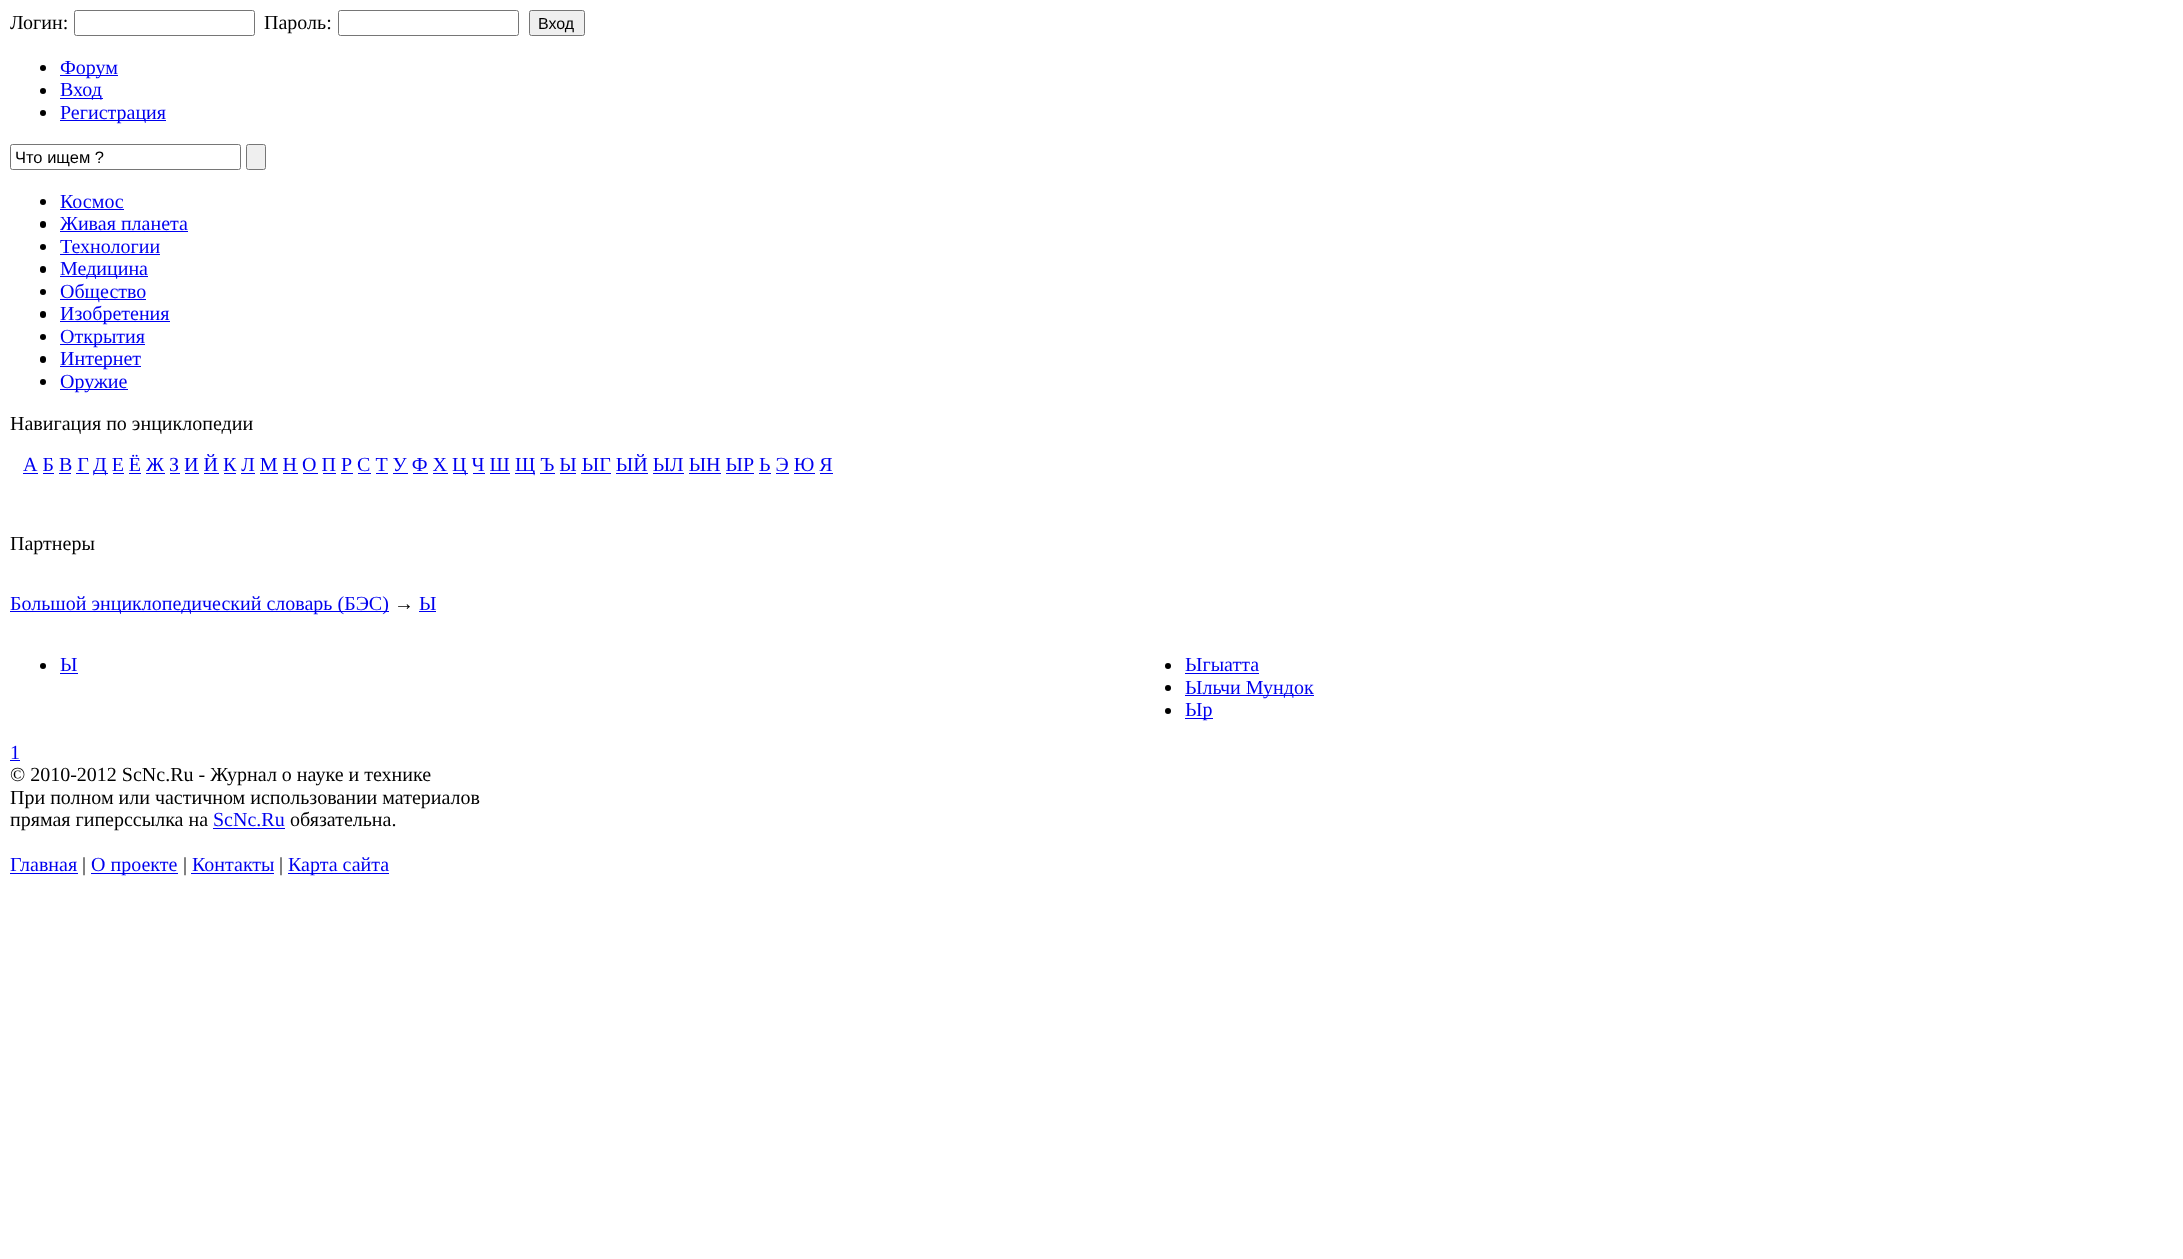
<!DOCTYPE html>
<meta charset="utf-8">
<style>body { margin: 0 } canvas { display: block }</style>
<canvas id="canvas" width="2183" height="1259"></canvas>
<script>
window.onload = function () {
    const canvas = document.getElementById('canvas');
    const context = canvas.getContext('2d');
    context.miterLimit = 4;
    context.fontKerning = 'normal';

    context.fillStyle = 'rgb(255, 255, 255)';
    context.fillRect(0, 0, 2183, 1259);
    context.beginPath();
    context.roundRect(74.5, 10.5, 180, 25, 2);
    context.strokeStyle = 'rgb(118, 118, 118)';
    context.stroke();
    context.beginPath();
    context.roundRect(338.5, 10.5, 180, 25, 2);
    context.stroke();
    context.fillStyle = 'rgb(239, 239, 239)';
    context.beginPath();
    context.roundRect(529.5, 10.5, 55, 25, 2);
    context.fill();
    context.stroke();
    context.fillStyle = 'rgb(0, 0, 0)';
    context.beginPath();
    context.arc(43, 68, 3, 0, 2 * Math.PI);
    context.fill();
    context.fillStyle = 'rgb(0, 0, 238)';
    context.fillRect(60, 75, 58, 1);
    context.fillStyle = 'rgb(0, 0, 0)';
    context.beginPath();
    context.arc(43, 91, 3, 0, 2 * Math.PI);
    context.fill();
    context.fillStyle = 'rgb(0, 0, 238)';
    context.fillRect(60, 98, 43, 1);
    context.fillStyle = 'rgb(0, 0, 0)';
    context.beginPath();
    context.arc(43, 113, 3, 0, 2 * Math.PI);
    context.fill();
    context.fillStyle = 'rgb(0, 0, 238)';
    context.fillRect(60, 120, 106, 1);
    context.beginPath();
    context.roundRect(10.5, 144.5, 230, 25, 2);
    context.stroke();
    context.fillStyle = 'rgb(239, 239, 239)';
    context.beginPath();
    context.roundRect(246.5, 144.5, 19, 25, 2);
    context.fill();
    context.stroke();
    context.fillStyle = 'rgb(0, 0, 0)';
    context.beginPath();
    context.arc(43, 202, 3, 0, 2 * Math.PI);
    context.fill();
    context.fillStyle = 'rgb(0, 0, 238)';
    context.fillRect(60, 209, 64, 1);
    context.fillStyle = 'rgb(0, 0, 0)';
    context.beginPath();
    context.roundRect(40, 221, 6, 7, 3);
    context.fill();
    context.fillStyle = 'rgb(0, 0, 238)';
    context.fillRect(60, 231, 128, 1);
    context.fillStyle = 'rgb(0, 0, 0)';
    context.beginPath();
    context.arc(43, 247, 3, 0, 2 * Math.PI);
    context.fill();
    context.fillStyle = 'rgb(0, 0, 238)';
    context.fillRect(60, 254, 100, 1);
    context.fillStyle = 'rgb(0, 0, 0)';
    context.beginPath();
    context.roundRect(40, 266, 6, 7, 3);
    context.fill();
    context.fillStyle = 'rgb(0, 0, 238)';
    context.fillRect(60, 276, 88, 1);
    context.fillStyle = 'rgb(0, 0, 0)';
    context.beginPath();
    context.arc(43, 292, 3, 0, 2 * Math.PI);
    context.fill();
    context.fillStyle = 'rgb(0, 0, 238)';
    context.fillRect(60, 299, 86, 1);
    context.fillStyle = 'rgb(0, 0, 0)';
    context.beginPath();
    context.roundRect(40, 311, 6, 7, 3);
    context.fill();
    context.fillStyle = 'rgb(0, 0, 238)';
    context.fillRect(60, 321, 110, 1);
    context.fillStyle = 'rgb(0, 0, 0)';
    context.beginPath();
    context.arc(43, 337, 3, 0, 2 * Math.PI);
    context.fill();
    context.fillStyle = 'rgb(0, 0, 238)';
    context.fillRect(60, 344, 85, 1);
    context.fillStyle = 'rgb(0, 0, 0)';
    context.beginPath();
    context.roundRect(40, 356, 6, 7, 3);
    context.fill();
    context.fillStyle = 'rgb(0, 0, 238)';
    context.fillRect(60, 366, 81, 1);
    context.fillStyle = 'rgb(0, 0, 0)';
    context.beginPath();
    context.arc(43, 382, 3, 0, 2 * Math.PI);
    context.fill();
    context.fillStyle = 'rgb(0, 0, 238)';
    context.fillRect(60, 389, 68, 1);
    context.fillRect(23, 473, 15, 1);
    context.fillRect(94, 473, 14, 1);
    context.fillRect(453, 473, 15, 1);
    context.fillRect(515, 473, 20, 1);
    context.fillRect(43, 473, 11, 1);
    context.fillRect(59, 473, 12, 1);
    context.fillRect(76, 473, 13, 1);
    context.fillRect(113, 473, 11, 1);
    context.fillRect(129, 473, 12, 1);
    context.fillRect(146, 473, 19, 1);
    context.fillRect(170, 473, 10, 1);
    context.fillRect(185, 473, 14, 1);
    context.fillRect(204, 473, 15, 1);
    context.fillRect(224, 473, 12, 1);
    context.fillRect(241, 473, 14, 1);
    context.fillRect(260, 473, 18, 1);
    context.fillRect(283, 473, 15, 1);
    context.fillRect(303, 473, 15, 1);
    context.fillRect(323, 473, 13, 1);
    context.fillRect(341, 473, 12, 1);
    context.fillRect(358, 473, 13, 1);
    context.fillRect(376, 473, 12, 1);
    context.fillRect(393, 473, 15, 1);
    context.fillRect(413, 473, 15, 1);
    context.fillRect(433, 473, 15, 1);
    context.fillRect(473, 473, 12, 1);
    context.fillRect(490, 473, 20, 1);
    context.fillRect(540, 473, 15, 1);
    context.fillRect(560, 473, 16, 1);
    context.fillRect(581, 473, 30, 1);
    context.fillRect(616, 473, 32, 1);
    context.fillRect(653, 473, 31, 1);
    context.fillRect(689, 473, 32, 1);
    context.fillRect(726, 473, 28, 1);
    context.fillRect(759, 473, 12, 1);
    context.fillRect(776, 473, 13, 1);
    context.fillRect(794, 473, 21, 1);
    context.fillRect(820, 473, 13, 1);
    context.fillRect(10, 611, 379, 1);
    context.fillRect(419, 611, 17, 1);
    context.fillStyle = 'rgb(0, 0, 0)';
    context.beginPath();
    context.arc(43, 666, 3, 0, 2 * Math.PI);
    context.fill();
    context.fillStyle = 'rgb(0, 0, 238)';
    context.fillRect(60, 673, 18, 1);
    context.fillStyle = 'rgb(0, 0, 0)';
    context.beginPath();
    context.arc(1168, 666, 3, 0, 2 * Math.PI);
    context.fill();
    context.fillStyle = 'rgb(0, 0, 238)';
    context.fillRect(1185, 673, 74, 1);
    context.fillStyle = 'rgb(0, 0, 0)';
    context.beginPath();
    context.arc(1168, 688, 3, 0, 2 * Math.PI);
    context.fill();
    context.fillStyle = 'rgb(0, 0, 238)';
    context.fillRect(1185, 695, 129, 1);
    context.fillStyle = 'rgb(0, 0, 0)';
    context.beginPath();
    context.arc(1168, 711, 3, 0, 2 * Math.PI);
    context.fill();
    context.fillStyle = 'rgb(0, 0, 238)';
    context.fillRect(1185, 718, 28, 1);
    context.fillRect(10, 760, 10, 1);
    context.fillRect(213, 828, 72, 1);
    context.fillRect(10, 873, 68, 1);
    context.fillRect(91, 873, 87, 1);
    context.fillRect(191, 873, 83, 1);
    context.fillRect(288, 873, 101, 1);
    context.font = '20px Liberation Serif';
    context.fillStyle = 'rgb(0, 0, 0)';
    context.fillText('Логин:', 10, 29);
    context.fillText('Пароль:', 264, 29);
    context.font = '16px Liberation Sans';
    context.fillText('Вход', 538, 29);
    context.font = '20px Liberation Serif';
    context.fillStyle = 'rgb(0, 0, 238)';
    context.fillText('Форум', 60, 74);
    context.fillText('Вход', 60, 96);
    context.fillText('Регистрация', 60, 119);
    context.font = '16.5px Liberation Sans';
    context.fillStyle = 'rgb(0, 0, 0)';
    context.fillText('Что ищем ?', 15, 163);
    context.font = '20px Liberation Serif';
    context.fillStyle = 'rgb(0, 0, 238)';
    context.fillText('Космос', 60, 208);
    context.fillText('Живая планета', 60, 230);
    context.fillText('Технологии', 60, 253);
    context.fillText('Медицина', 60, 275);
    context.fillText('Общество', 60, 298);
    context.fillText('Изобретения', 60, 320);
    context.fillText('Открытия', 60, 343);
    context.fillText('Интернет', 60, 365);
    context.fillText('Оружие', 60, 388);
    context.fillStyle = 'rgb(0, 0, 0)';
    context.fillText('Навигация по энциклопедии', 10, 430);
    context.fillStyle = 'rgb(0, 0, 238)';
    context.fillText('А Б В Г', 23, 471);
    context.fillText('Д Е Ё Ж З И Й К Л М Н О П Р С Т У Ф Х', 93, 471);
    context.fillText('Ц Ч Ш', 452, 471);
    context.fillText('Щ Ъ Ы ЫГ ЫЙ ЫЛ ЫН ЫР Ь Э Ю Я', 515, 471);
    context.fillStyle = 'rgb(0, 0, 0)';
    context.fillText('Партнеры', 10, 550);
    context.fillStyle = 'rgb(0, 0, 238)';
    context.fillText('Большой энциклопедический словарь (БЭС)', 10, 610);
    context.fillStyle = 'rgb(0, 0, 0)';
    context.fillText('→', 394, 610);
    context.fillStyle = 'rgb(0, 0, 238)';
    context.fillText('Ы', 419, 610);
    context.fillText('Ы', 60, 671);
    context.fillText('Ыгыатта', 1185, 671);
    context.fillText('Ыльчи Мундок', 1185, 694);
    context.fillText('Ыр', 1185, 716);
    context.fillText('1', 10, 759);
    context.fillStyle = 'rgb(0, 0, 0)';
    context.fillText('© 2010-2012 ScNc.Ru - Журнал о науке и технике', 10, 781);
    context.fillText('При полном или частичном использовании материалов', 10, 804);
    context.fillText('прямая гиперссылка на', 10, 826);
    context.fillStyle = 'rgb(0, 0, 238)';
    context.fillText('ScNc.Ru', 213, 826);
    context.fillStyle = 'rgb(0, 0, 0)';
    context.fillText('обязательна.', 290, 826);
    context.fillStyle = 'rgb(0, 0, 238)';
    context.fillText('Главная', 10, 871);
    context.fillStyle = 'rgb(0, 0, 0)';
    context.fillText('|', 82, 871);
    context.fillStyle = 'rgb(0, 0, 238)';
    context.fillText('О проекте', 91, 871);
    context.fillStyle = 'rgb(0, 0, 0)';
    context.fillText('|', 183, 871);
    context.fillStyle = 'rgb(0, 0, 238)';
    context.fillText('Контакты', 192, 871);
    context.fillStyle = 'rgb(0, 0, 0)';
    context.fillText('|', 279, 871);
    context.fillStyle = 'rgb(0, 0, 238)';
    context.fillText('Карта сайта', 288, 871);
};
</script>
